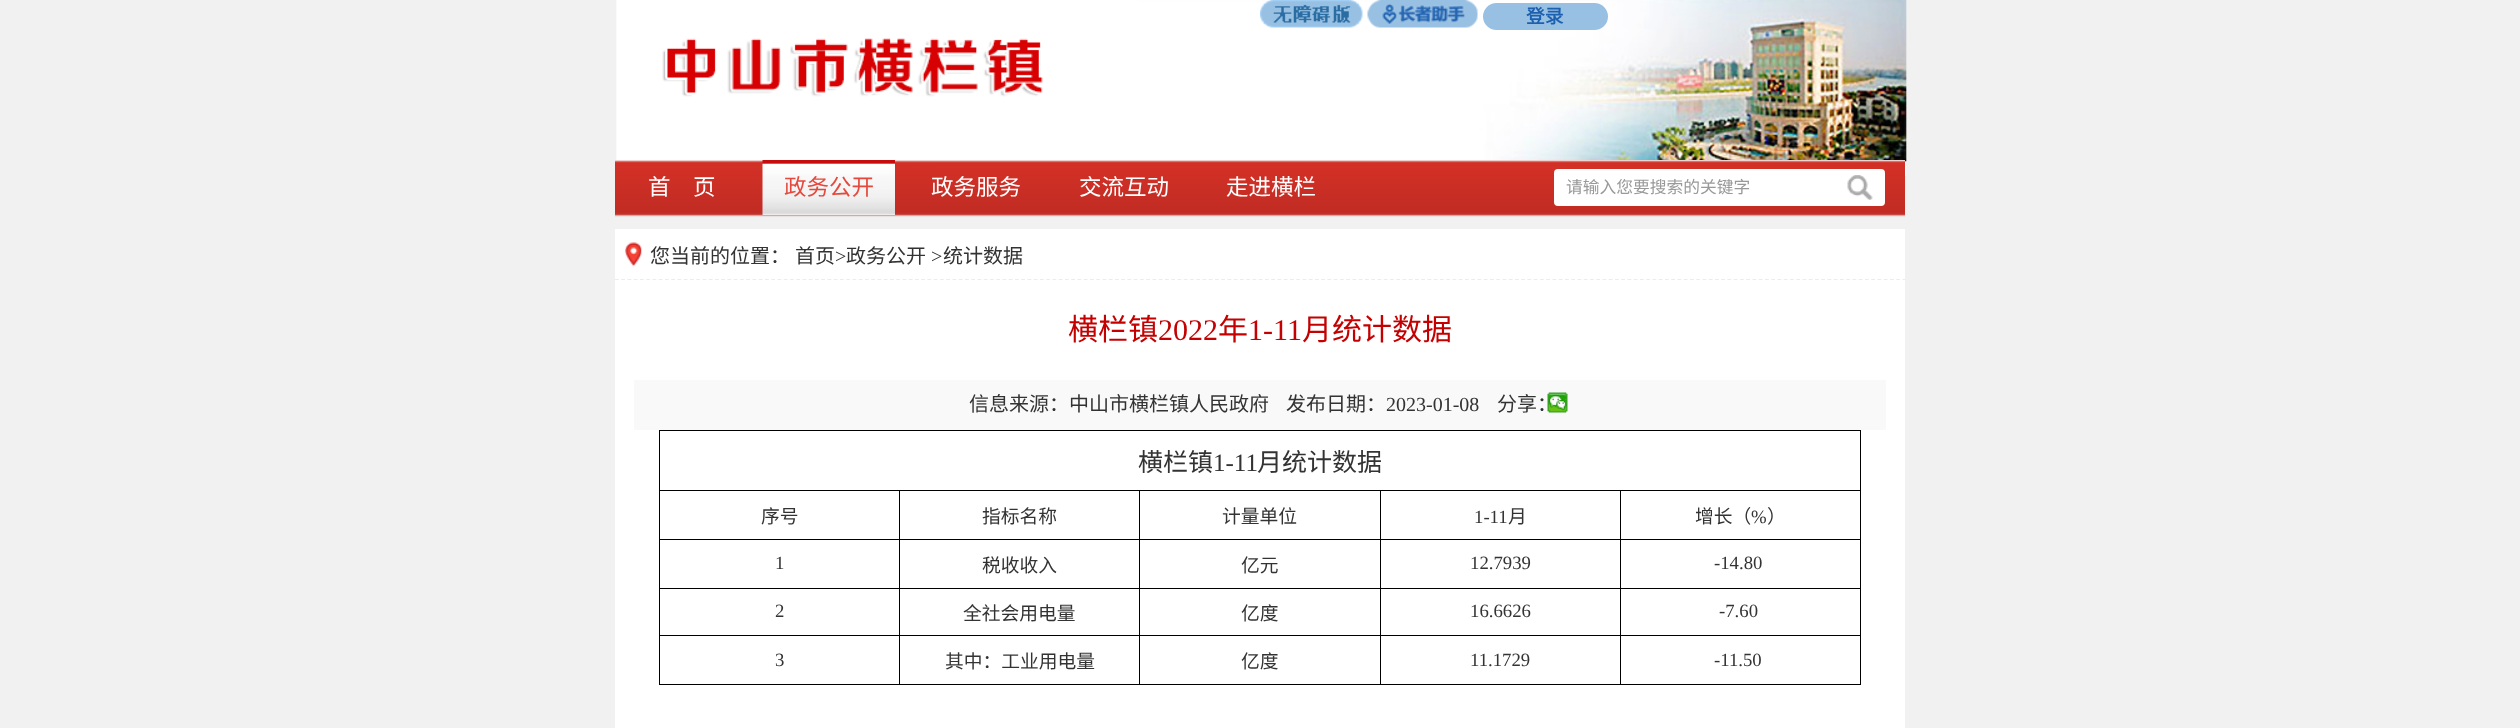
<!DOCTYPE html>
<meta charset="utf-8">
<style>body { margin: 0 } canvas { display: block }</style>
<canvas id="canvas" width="2520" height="728"></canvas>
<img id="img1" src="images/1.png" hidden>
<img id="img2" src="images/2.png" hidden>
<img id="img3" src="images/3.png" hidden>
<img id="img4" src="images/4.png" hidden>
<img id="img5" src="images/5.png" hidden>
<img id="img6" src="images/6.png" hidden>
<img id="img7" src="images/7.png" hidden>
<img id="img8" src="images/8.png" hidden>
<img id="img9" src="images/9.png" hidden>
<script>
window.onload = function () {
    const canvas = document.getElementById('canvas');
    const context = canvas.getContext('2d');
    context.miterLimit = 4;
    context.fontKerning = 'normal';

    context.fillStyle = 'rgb(241, 241, 241)';
    context.fillRect(0, 0, 2520, 728);
    context.drawImage(document.getElementById('img1'), 616, 0, 1291, 176);
    context.drawImage(document.getElementById('img2'), 1260, 0, 103, 28);
    context.drawImage(document.getElementById('img3'), 1367, 0, 111, 28);
    context.fillStyle = 'rgb(152, 192, 227)';
    context.beginPath();
    context.roundRect(1483, 3, 125, 27, 13.5);
    context.fill();
    context.drawImage(document.getElementById('img4'), 662, 38, 381, 59);
    context.drawImage(document.getElementById('img5'), 615, 160, 1290, 57);
    context.drawImage(document.getElementById('img6'), 762, 160, 133, 55);
    context.fillStyle = 'rgb(255, 255, 255)';
    context.beginPath();
    context.roundRect(1554, 169, 331, 37, 4);
    context.fill();
    context.drawImage(document.getElementById('img7'), 1847, 175, 26, 25);
    context.fillRect(615, 229, 1290, 51);
    context.drawImage(document.getElementById('img8'), 625, 242, 17, 25);
    context.beginPath();
    context.moveTo(615, 279.5);
    context.lineTo(1905, 279.5);
    context.strokeStyle = 'rgb(236, 236, 236)';
    context.lineWidth = 1.2;
    context.setLineDash([3.75, 2.5]);
    context.stroke();
    context.fillRect(615, 280, 1290, 448);
    context.fillStyle = 'rgb(249, 249, 249)';
    context.fillRect(634, 380, 1252, 50);
    context.drawImage(document.getElementById('img9'), 1547, 392, 21, 21);
    context.fillStyle = 'rgb(0, 0, 0)';
    context.fillRect(659, 430, 1202, 1);
    context.fillRect(1620, 490, 241, 1);
    context.fillRect(1620, 539, 241, 1);
    context.fillRect(1620, 588, 241, 1);
    context.fillRect(1620, 635, 241, 1);
    context.fillRect(1860, 635, 1, 50);
    context.fillRect(1860, 588, 1, 48);
    context.fillRect(1860, 539, 1, 50);
    context.fillRect(1860, 490, 1, 50);
    context.fillRect(1860, 430, 1, 61);
    context.fillRect(1620, 684, 241, 1);
    context.fillRect(1620, 635, 1, 50);
    context.fillRect(1380, 635, 241, 1);
    context.fillRect(1620, 588, 1, 48);
    context.fillRect(1380, 588, 241, 1);
    context.fillRect(1620, 539, 1, 50);
    context.fillRect(1380, 539, 241, 1);
    context.fillRect(1620, 490, 1, 50);
    context.fillRect(1380, 490, 241, 1);
    context.fillRect(1380, 684, 241, 1);
    context.fillRect(1380, 635, 1, 50);
    context.fillRect(1139, 635, 242, 1);
    context.fillRect(1380, 588, 1, 48);
    context.fillRect(1139, 588, 242, 1);
    context.fillRect(1380, 539, 1, 50);
    context.fillRect(1139, 539, 242, 1);
    context.fillRect(1380, 490, 1, 50);
    context.fillRect(1139, 490, 242, 1);
    context.fillRect(1139, 684, 242, 1);
    context.fillRect(1139, 635, 1, 50);
    context.fillRect(899, 635, 241, 1);
    context.fillRect(1139, 588, 1, 48);
    context.fillRect(899, 588, 241, 1);
    context.fillRect(1139, 539, 1, 50);
    context.fillRect(899, 539, 241, 1);
    context.fillRect(1139, 490, 1, 50);
    context.fillRect(899, 490, 241, 1);
    context.fillRect(899, 684, 241, 1);
    context.fillRect(899, 635, 1, 50);
    context.fillRect(659, 635, 241, 1);
    context.fillRect(899, 588, 1, 48);
    context.fillRect(659, 588, 241, 1);
    context.fillRect(899, 539, 1, 50);
    context.fillRect(659, 539, 241, 1);
    context.fillRect(899, 490, 1, 50);
    context.fillRect(659, 490, 241, 1);
    context.fillRect(659, 684, 241, 1);
    context.fillRect(659, 635, 1, 50);
    context.fillRect(659, 588, 1, 48);
    context.fillRect(659, 539, 1, 50);
    context.fillRect(659, 490, 1, 50);
    context.fillRect(659, 430, 1, 61);
    context.font = 'bold 18.75px Noto Sans CJK SC';
    context.fillStyle = 'rgb(29, 96, 175)';
    context.fillText('登录', 1526, 23);
    context.font = '22.5px Noto Sans CJK SC';
    context.fillStyle = 'rgb(255, 255, 255)';
    context.fillText('首　页', 648, 195);
    context.fillStyle = 'rgb(229, 73, 61)';
    context.fillText('政务公开', 784, 195);
    context.fillStyle = 'rgb(255, 255, 255)';
    context.fillText('政务服务', 931, 195);
    context.fillText('交流互动', 1079, 195);
    context.fillText('走进横栏', 1226, 195);
    context.font = '16.75px Noto Sans CJK SC';
    context.fillStyle = 'rgb(153, 153, 153)';
    context.fillText('请输入您要搜索的关键字', 1566, 193);
    context.font = '20px Noto Sans CJK SC';
    context.fillStyle = 'rgb(51, 51, 51)';
    context.fillText('您当前的位置：', 650, 263);
    context.fillText('首页', 795, 263);
    context.font = '20px Liberation Serif';
    context.fillText('>', 835, 263);
    context.font = '20px Noto Sans CJK SC';
    context.fillText('政务公开', 846, 263);
    context.font = '20px Liberation Serif';
    context.fillText('>', 931, 263);
    context.font = '20px Noto Sans CJK SC';
    context.fillText('统计数据', 943, 263);
    context.font = '30px Noto Sans CJK SC';
    context.fillStyle = 'rgb(196, 0, 0)';
    context.fillText('横栏镇', 1068, 340);
    context.font = '30px Liberation Serif';
    context.fillText('2022', 1158, 340);
    context.font = '30px Noto Sans CJK SC';
    context.fillText('年', 1218, 340);
    context.font = '30px Liberation Serif';
    context.fillText('1-11', 1248, 340);
    context.font = '30px Noto Sans CJK SC';
    context.fillText('月统计数据', 1302, 340);
    context.font = '20px Noto Sans CJK SC';
    context.fillStyle = 'rgb(51, 51, 51)';
    context.fillText('信息来源：中山市横栏镇人民政府', 969, 411);
    context.fillText('发布日期：', 1286, 411);
    context.font = '20px Liberation Serif';
    context.fillText('2023-01-08', 1386, 411);
    context.font = '20px Noto Sans CJK SC';
    context.fillText('分享：', 1497, 411);
    context.font = '25px Noto Sans CJK SC';
    context.fillText('横栏镇', 1138, 471);
    context.font = '25px Liberation Serif';
    context.fillText('1-11', 1213, 471);
    context.font = '25px Noto Sans CJK SC';
    context.fillText('月统计数据', 1257, 471);
    context.font = '18.75px Noto Sans CJK SC';
    context.fillText('序号', 761, 523);
    context.fillText('指标名称', 982, 523);
    context.fillText('计量单位', 1222, 523);
    context.font = '18.75px Liberation Serif';
    context.fillText('1-11', 1474, 523);
    context.font = '18.75px Noto Sans CJK SC';
    context.fillText('月', 1508, 523);
    context.fillText('增长（', 1695, 523);
    context.font = '18.75px Liberation Serif';
    context.fillText('%', 1751, 523);
    context.font = '18.75px Noto Sans CJK SC';
    context.fillText('）', 1767, 523);
    context.font = '18.75px Liberation Serif';
    context.fillText('1', 775, 569);
    context.font = '18.75px Noto Sans CJK SC';
    context.fillText('税收收入', 982, 572);
    context.fillText('亿元', 1241, 572);
    context.font = '18.75px Liberation Serif';
    context.fillText('12.7939', 1470, 569);
    context.fillText('-14.80', 1714, 569);
    context.fillText('2', 775, 617);
    context.font = '18.75px Noto Sans CJK SC';
    context.fillText('全社会用电量', 963, 620);
    context.fillText('亿度', 1241, 620);
    context.font = '18.75px Liberation Serif';
    context.fillText('16.6626', 1470, 617);
    context.fillText('-7.60', 1719, 617);
    context.fillText('3', 775, 666);
    context.font = '18.75px Noto Sans CJK SC';
    context.fillText('其中：工业用电量', 945, 668);
    context.fillText('亿度', 1241, 668);
    context.font = '18.75px Liberation Serif';
    context.fillText('11.1729', 1470, 666);
    context.fillText('-11.50', 1714, 666);
};
</script>
